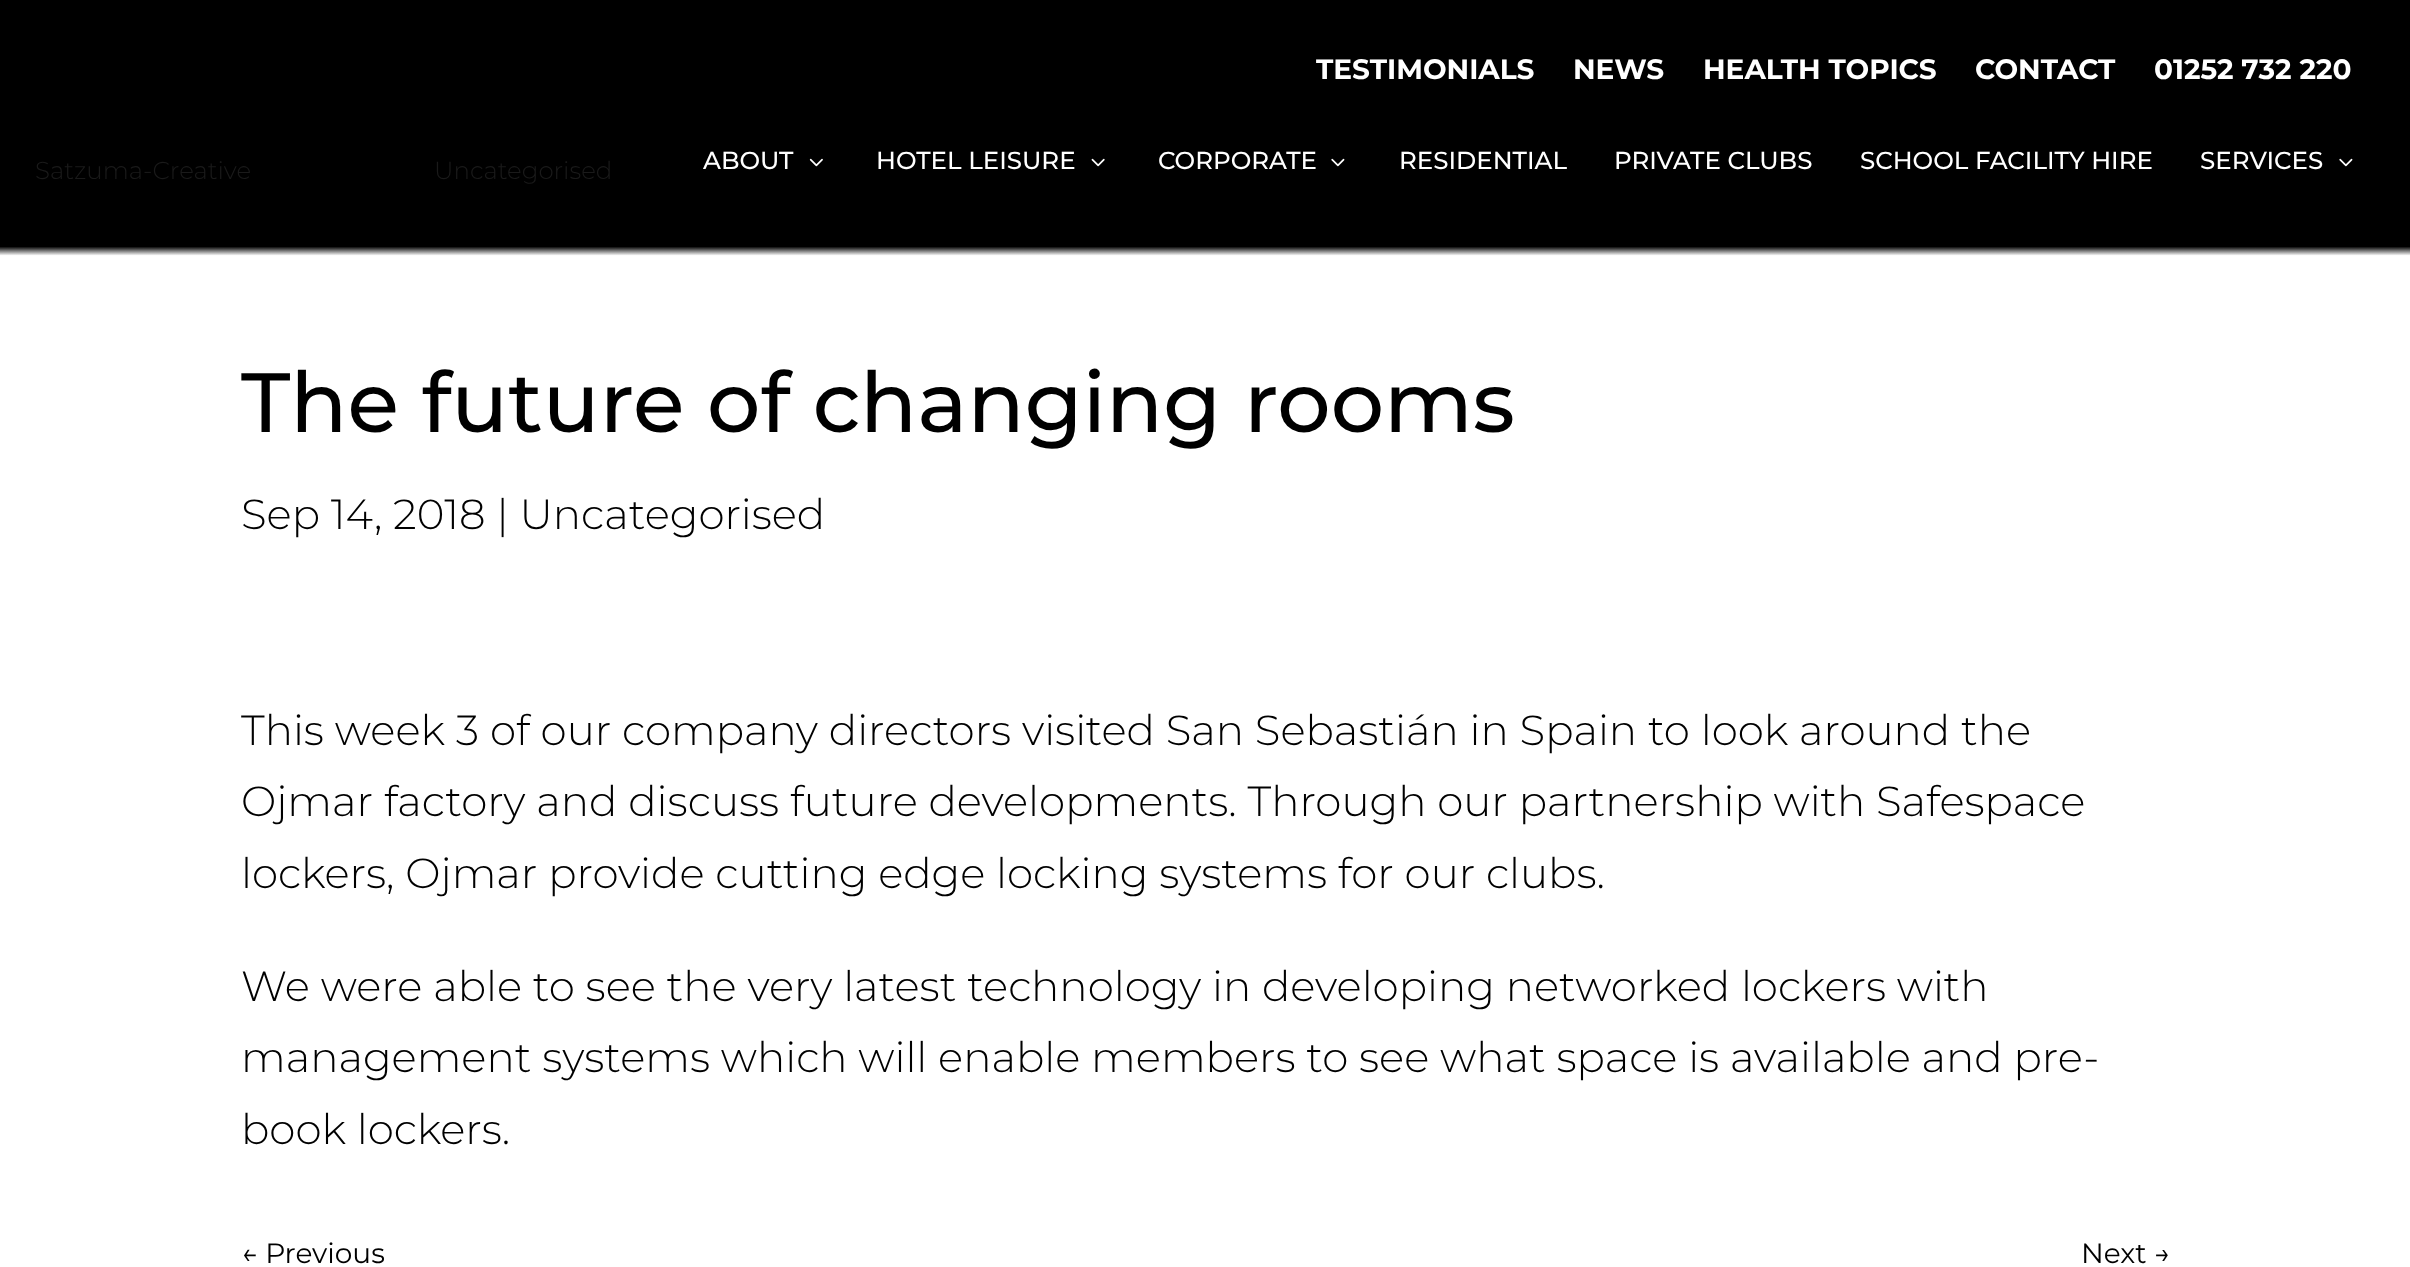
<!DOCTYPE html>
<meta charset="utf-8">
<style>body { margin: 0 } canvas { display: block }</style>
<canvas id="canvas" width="2410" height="1267"></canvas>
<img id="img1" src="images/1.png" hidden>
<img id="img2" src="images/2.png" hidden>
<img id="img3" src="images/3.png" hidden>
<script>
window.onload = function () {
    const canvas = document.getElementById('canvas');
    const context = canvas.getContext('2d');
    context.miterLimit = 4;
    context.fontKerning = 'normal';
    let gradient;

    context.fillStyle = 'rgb(0, 0, 0)';
    context.fillRect(0, 0, 2410, 1267);
    context.drawImage(document.getElementById('img1'), 809, 158, 14, 9);
    context.drawImage(document.getElementById('img2'), 1091, 158, 14, 9);
    context.drawImage(document.getElementById('img3'), 1331, 158, 14, 9);
    context.drawImage(document.getElementById('img3'), 2339, 158, 14, 9);
    context.fillStyle = 'rgb(255, 255, 255)';
    context.fillRect(0, 257, 2410, 1010);
    gradient = context.createLinearGradient(1206, 243, 1206, 257);
    gradient.addColorStop(0.25, 'rgb(0, 0, 0)');
    gradient.addColorStop(0.9, 'rgb(255, 255, 255)');
    context.fillStyle = gradient;
    context.fillRect(0, 247, 2410, 10);
    context.font = 'bold 28px Montserrat';
    context.fillStyle = 'rgb(255, 255, 255)';
    context.fillText('TESTIMONIALS', 1316, 79);
    context.fillText('NEWS', 1573, 79);
    context.fillText('HEALTH TOPICS', 1703, 79);
    context.fillText('CONTACT', 1975, 79);
    context.fillText('01252 732 220', 2154, 79);
    context.font = '500 24.5px Montserrat';
    context.fillText('ABOUT', 703, 169);
    context.fillText('HOTEL LEISURE', 876, 169);
    context.fillText('CORPORATE', 1158, 169);
    context.fillText('RESIDENTIAL', 1399, 169);
    context.fillText('PRIVATE CLUBS', 1614, 169);
    context.fillText('SCHOOL FACILITY HIRE', 1860, 169);
    context.fillText('SERVICES', 2200, 169);
    context.font = '300 24.5px Montserrat';
    context.fillStyle = 'rgb(26, 26, 26)';
    context.fillText('Satzuma-Creative', 35, 179);
    context.fillText('Uncategorised', 434, 179);
    context.font = '500 84px Montserrat';
    context.fillStyle = 'rgb(0, 0, 0)';
    context.fillText('The future of changing rooms', 241, 432);
    context.font = '300 42px Montserrat';
    context.fillText('Sep 14, 2018 | Uncategorised', 241, 529);
    context.fillText('This week 3 of our company directors visited San Sebastián in Spain to look around the', 241, 745);
    context.fillText('Ojmar factory and discuss future developments. Through our partnership with Safespace', 241, 816);
    context.fillText('lockers, Ojmar provide cutting edge locking systems for our clubs.', 241, 888);
    context.fillText('We were able to see the very latest technology in developing networked lockers with', 241, 1001);
    context.fillText('management systems which will enable members to see what space is available and pre-', 241, 1072);
    context.fillText('book lockers.', 241, 1144);
    context.font = '28px Montserrat';
    context.fillText('← Previous', 241, 1263);
    context.fillText('Next →', 2081, 1263);
};
</script>
